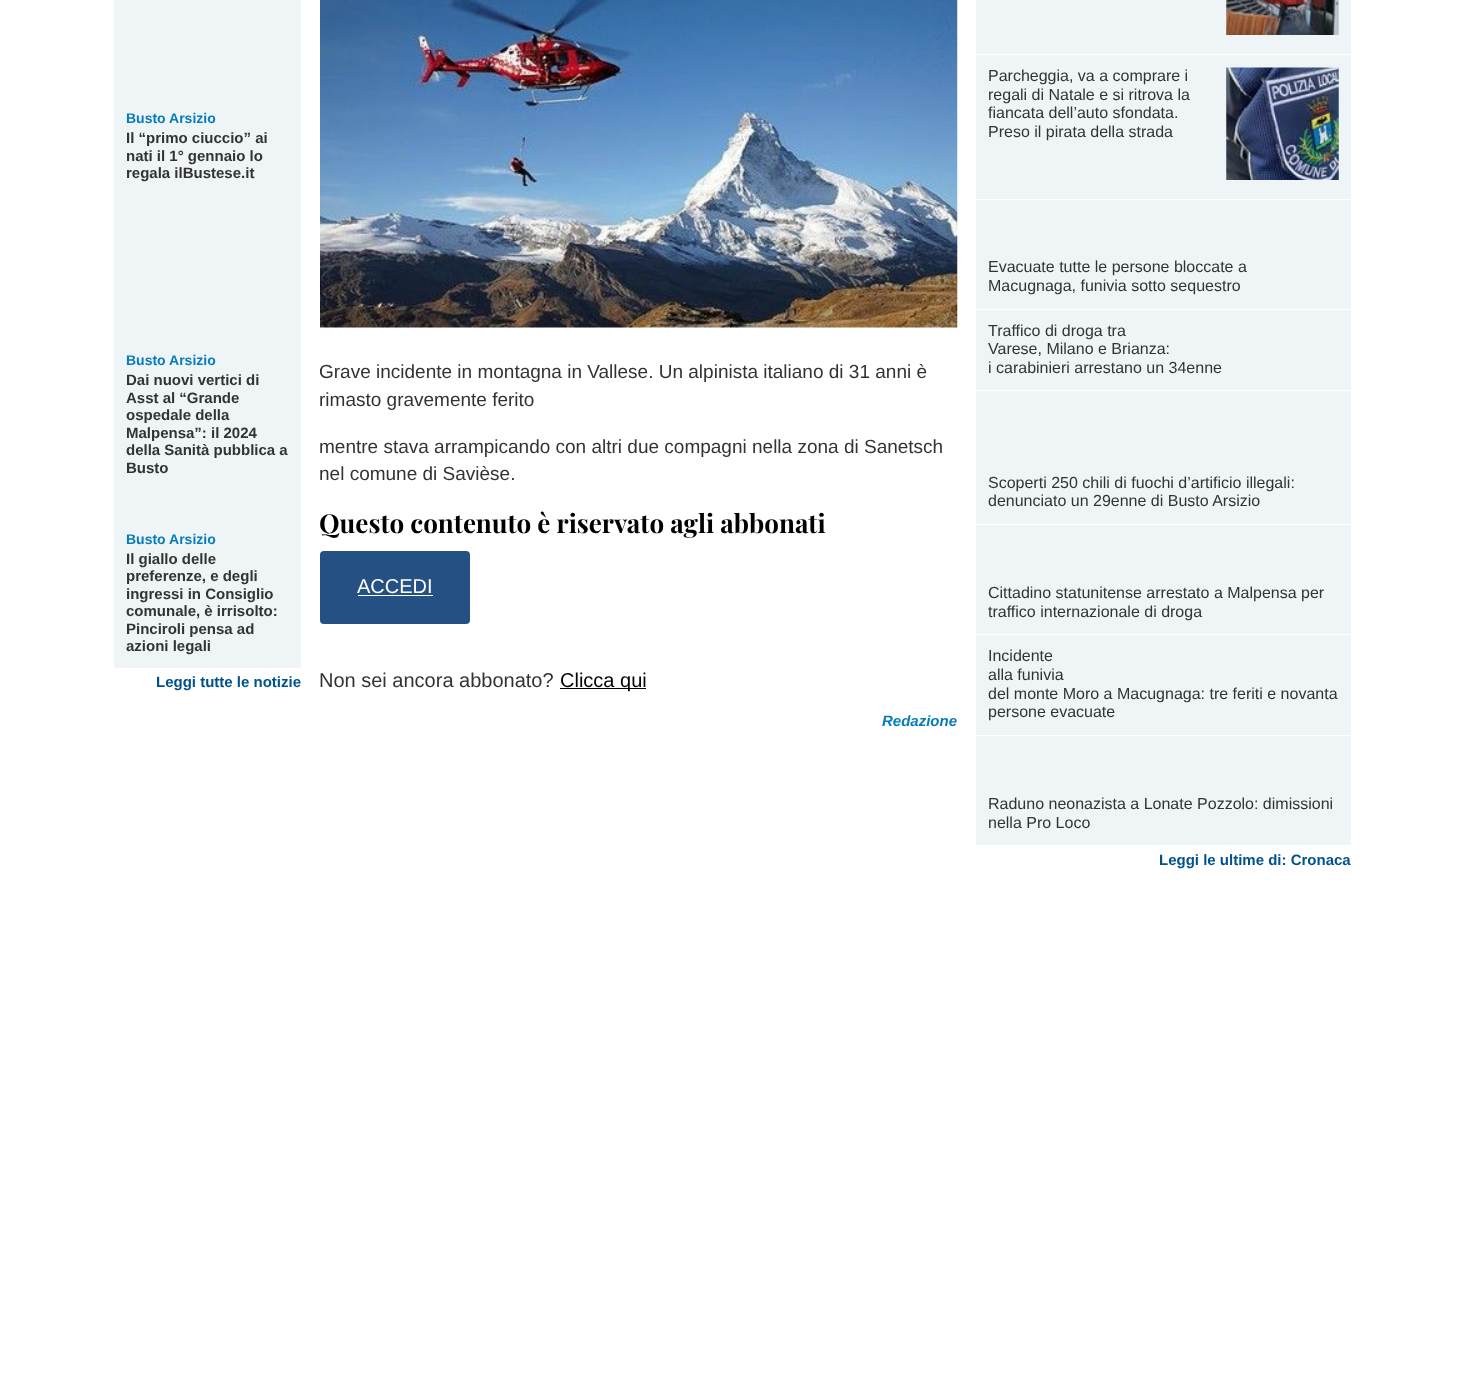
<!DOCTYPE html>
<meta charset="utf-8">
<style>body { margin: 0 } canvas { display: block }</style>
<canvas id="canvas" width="1463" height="1375"></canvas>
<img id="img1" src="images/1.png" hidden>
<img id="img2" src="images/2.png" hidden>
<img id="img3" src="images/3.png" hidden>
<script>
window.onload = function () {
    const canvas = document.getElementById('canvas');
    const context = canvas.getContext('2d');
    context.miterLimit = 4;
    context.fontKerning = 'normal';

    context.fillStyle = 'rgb(255, 255, 255)';
    context.fillRect(0, 0, 1463, 1375);
    context.fillStyle = 'rgb(239, 244, 247)';
    context.fillRect(114, 0, 187, 668);
    context.drawImage(document.getElementById('img1'), 320, 0, 638, 328);
    context.fillStyle = 'rgb(36, 80, 131)';
    context.beginPath();
    context.roundRect(320, 551, 150, 73, 4);
    context.fill();
    context.fillStyle = 'rgb(255, 255, 255)';
    context.fillRect(358, 595, 75, 1);
    context.fillStyle = 'rgb(0, 0, 0)';
    context.fillRect(560, 688, 86, 1);
    context.fillStyle = 'rgb(239, 244, 247)';
    context.fillRect(976, 0, 375, 54);
    context.drawImage(document.getElementById('img2'), 1226, 0, 113, 35);
    context.fillRect(976, 55, 375, 144);
    context.drawImage(document.getElementById('img3'), 1226, 67, 113, 113);
    context.fillRect(976, 200, 375, 109);
    context.fillRect(976, 310, 375, 80);
    context.fillRect(976, 391, 375, 133);
    context.fillRect(976, 525, 375, 109);
    context.fillRect(976, 635, 375, 100);
    context.fillRect(976, 736, 375, 109);
    context.font = 'bold 14px Liberation Sans';
    context.fillStyle = 'rgb(8, 123, 187)';
    context.fillText('Busto Arsizio', 126, 123);
    context.font = 'bold 15px Liberation Sans';
    context.fillStyle = 'rgb(51, 51, 51)';
    context.fillText('Il “primo ciuccio” ai', 126, 143);
    context.fillText('nati il 1° gennaio lo', 126, 161);
    context.fillText('regala ilBustese.it', 126, 178);
    context.font = 'bold 14px Liberation Sans';
    context.fillStyle = 'rgb(8, 123, 187)';
    context.fillText('Busto Arsizio', 126, 365);
    context.font = 'bold 15px Liberation Sans';
    context.fillStyle = 'rgb(51, 51, 51)';
    context.fillText('Dai nuovi vertici di', 126, 385);
    context.fillText('Asst al “Grande', 126, 403);
    context.fillText('ospedale della', 126, 420);
    context.fillText('Malpensa”: il 2024', 126, 438);
    context.fillText('della Sanità pubblica a', 126, 455);
    context.fillText('Busto', 126, 473);
    context.font = 'bold 14px Liberation Sans';
    context.fillStyle = 'rgb(8, 123, 187)';
    context.fillText('Busto Arsizio', 126, 544);
    context.font = 'bold 15px Liberation Sans';
    context.fillStyle = 'rgb(51, 51, 51)';
    context.fillText('Il giallo delle', 126, 564);
    context.fillText('preferenze, e degli', 126, 581);
    context.fillText('ingressi in Consiglio', 126, 599);
    context.fillText('comunale, è irrisolto:', 126, 616);
    context.fillText('Pinciroli pensa ad', 126, 634);
    context.fillText('azioni legali', 126, 651);
    context.fillStyle = 'rgb(0, 82, 138)';
    context.fillText('Leggi tutte le notizie', 156, 687);
    context.font = '19px Liberation Sans';
    context.fillStyle = 'rgb(51, 51, 51)';
    context.fillText('Grave incidente in montagna in Vallese. Un alpinista italiano di 31 anni è', 319, 378);
    context.fillText('rimasto gravemente ferito', 319, 406);
    context.fillText('mentre stava arrampicando con altri due compagni nella zona di Sanetsch', 319, 453);
    context.fillText('nel comune di Savièse.', 319, 480);
    context.font = 'bold 26px Playfair Display';
    context.fillStyle = 'rgb(0, 0, 0)';
    context.fillText('Questo contenuto è riservato agli abbonati', 319, 533);
    context.font = '20px Liberation Sans';
    context.fillStyle = 'rgb(255, 255, 255)';
    context.fillText('ACCEDI', 357, 593);
    context.fillStyle = 'rgb(51, 51, 51)';
    context.fillText('Non sei ancora abbonato?', 319, 687);
    context.fillStyle = 'rgb(0, 0, 0)';
    context.fillText('Clicca qui', 560, 687);
    context.font = 'italic bold 15px Liberation Sans';
    context.fillStyle = 'rgb(8, 123, 187)';
    context.fillText('Redazione', 882, 726);
    context.font = '16px Liberation Sans';
    context.fillStyle = 'rgb(51, 51, 51)';
    context.fillText('Parcheggia, va a comprare i', 988, 81);
    context.fillText('regali di Natale e si ritrova la', 988, 100);
    context.fillText('fiancata dell’auto sfondata.', 988, 118);
    context.fillText('Preso il pirata della strada', 988, 137);
    context.fillText('Evacuate tutte le persone bloccate a', 988, 272);
    context.fillText('Macugnaga, funivia sotto sequestro', 988, 291);
    context.fillText('Traffico di droga tra', 988, 336);
    context.fillText('Varese, Milano e Brianza:', 988, 354);
    context.fillText('i carabinieri arrestano un 34enne', 988, 373);
    context.fillText('Scoperti 250 chili di fuochi d’artificio illegali:', 988, 488);
    context.fillText('denunciato un 29enne di Busto Arsizio', 988, 506);
    context.fillText('Cittadino statunitense arrestato a Malpensa per', 988, 598);
    context.fillText('traffico internazionale di droga', 988, 617);
    context.fillText('Incidente', 988, 661);
    context.fillText('alla funivia', 988, 680);
    context.fillText('del monte Moro a Macugnaga: tre feriti e novanta', 988, 699);
    context.fillText('persone evacuate', 988, 717);
    context.fillText('Raduno neonazista a Lonate Pozzolo: dimissioni', 988, 809);
    context.fillText('nella Pro Loco', 988, 828);
    context.font = 'bold 15px Liberation Sans';
    context.fillStyle = 'rgb(0, 82, 138)';
    context.fillText('Leggi le ultime di: Cronaca', 1159, 865);
};
</script>
